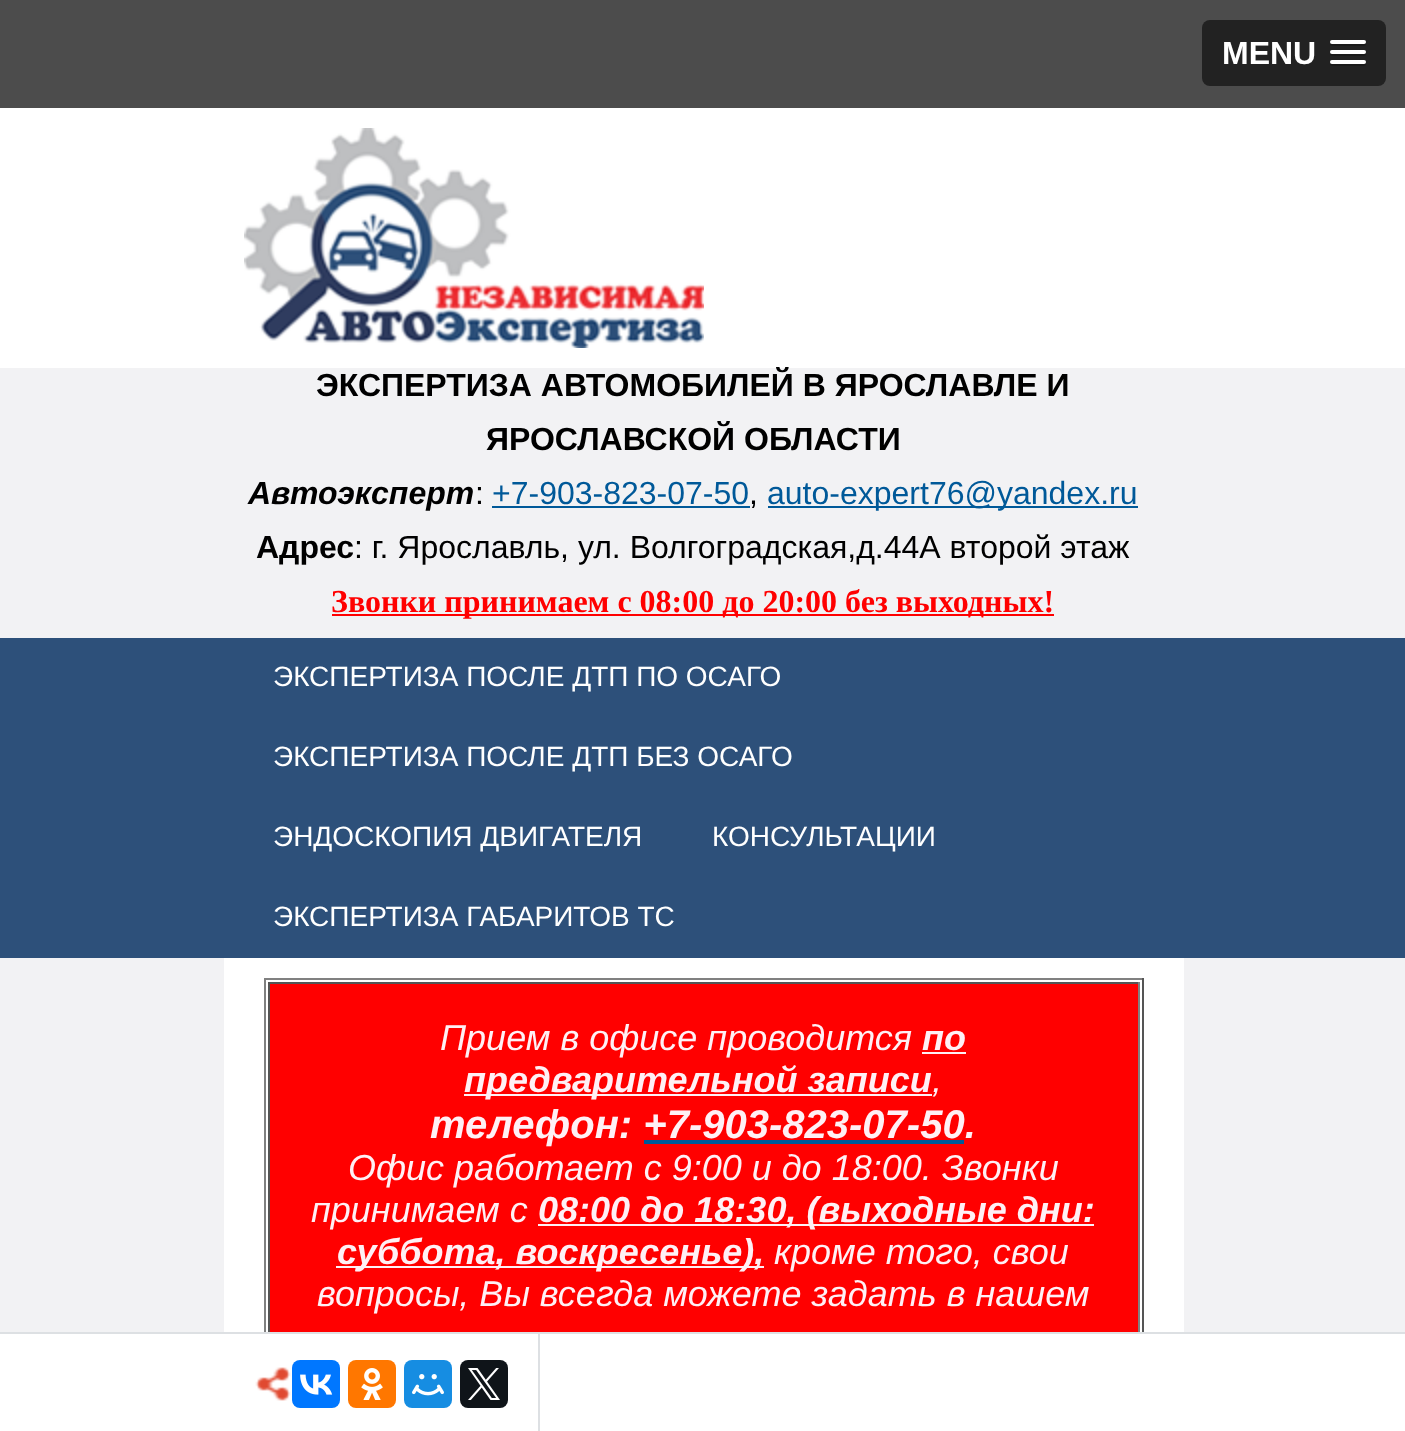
<!DOCTYPE html>
<meta charset="utf-8">
<style>body { margin: 0 } canvas { display: block }</style>
<canvas id="canvas" width="1405" height="1431"></canvas>
<img id="img1" src="images/1.png" hidden>
<img id="img2" src="images/2.png" hidden>
<img id="img3" src="images/3.png" hidden>
<img id="img4" src="images/4.png" hidden>
<img id="img5" src="images/5.png" hidden>
<img id="img6" src="images/6.png" hidden>
<script>
window.onload = function () {
    const canvas = document.getElementById('canvas');
    const context = canvas.getContext('2d');
    context.miterLimit = 4;
    context.fontKerning = 'normal';

    context.fillStyle = 'rgb(242, 242, 244)';
    context.fillRect(0, 0, 1405, 1431);
    context.fillStyle = 'rgb(76, 76, 76)';
    context.fillRect(0, 0, 1405, 108);
    context.fillStyle = 'rgb(34, 34, 34)';
    context.beginPath();
    context.roundRect(1202, 20, 184, 66, 8);
    context.fill();
    context.fillStyle = 'rgb(26, 26, 26)';
    context.beginPath();
    context.moveTo(1330.5, 43);
    context.bezierCurveTo(1328, 47, 1337, 46, 1337.5, 46);
    context.lineTo(1358.5, 46);
    context.bezierCurveTo(1359, 46, 1368, 47, 1365.5, 43);
    context.bezierCurveTo(1365.5, 43.5, 1364.5, 44, 1364, 44);
    context.lineTo(1332, 44);
    context.bezierCurveTo(1331.5, 44, 1330.5, 43.5, 1330.5, 43);
    context.closePath();
    context.fill();
    context.fillStyle = 'rgb(255, 255, 255)';
    context.beginPath();
    context.roundRect(1330, 40, 36, 4, 2);
    context.fill();
    context.fillStyle = 'rgb(26, 26, 26)';
    context.beginPath();
    context.moveTo(1330.5, 53);
    context.bezierCurveTo(1328, 57, 1337, 56, 1337.5, 56);
    context.lineTo(1358.5, 56);
    context.bezierCurveTo(1359, 56, 1368, 57, 1365.5, 53);
    context.bezierCurveTo(1365.5, 53.5, 1364.5, 54, 1364, 54);
    context.lineTo(1332, 54);
    context.bezierCurveTo(1331.5, 54, 1330.5, 53.5, 1330.5, 53);
    context.closePath();
    context.fill();
    context.fillStyle = 'rgb(255, 255, 255)';
    context.beginPath();
    context.roundRect(1330, 50, 36, 4, 2);
    context.fill();
    context.fillStyle = 'rgb(26, 26, 26)';
    context.beginPath();
    context.moveTo(1330.5, 63);
    context.bezierCurveTo(1328, 67, 1337, 66, 1337.5, 66);
    context.lineTo(1358.5, 66);
    context.bezierCurveTo(1359, 66, 1368, 67, 1365.5, 63);
    context.bezierCurveTo(1365.5, 63.5, 1364.5, 64, 1364, 64);
    context.lineTo(1332, 64);
    context.bezierCurveTo(1331.5, 64, 1330.5, 63.5, 1330.5, 63);
    context.closePath();
    context.fill();
    context.fillStyle = 'rgb(255, 255, 255)';
    context.beginPath();
    context.roundRect(1330, 60, 36, 4, 2);
    context.fill();
    context.fillRect(0, 108, 1405, 260);
    context.drawImage(document.getElementById('img1'), 244, 128, 460, 220);
    context.fillStyle = 'rgb(0, 89, 153)';
    context.fillRect(492, 506, 258, 2);
    context.fillRect(768, 506, 370, 2);
    context.fillStyle = 'rgb(255, 0, 0)';
    context.fillRect(332, 614, 722, 2);
    context.fillStyle = 'rgb(45, 80, 122)';
    context.fillRect(0, 638, 1405, 320);
    context.fillStyle = 'rgb(255, 255, 255)';
    context.fillRect(224, 958, 960, 374);
    context.fillStyle = 'rgb(128, 128, 128)';
    context.fillRect(264, 978, 880, 2);
    context.fillStyle = 'rgb(85, 85, 85)';
    context.fillRect(1142, 978, 2, 354);
    context.fillStyle = 'rgb(128, 128, 128)';
    context.fillRect(264, 978, 2, 354);
    context.fillStyle = 'rgb(255, 0, 0)';
    context.fillRect(270, 984, 868, 348);
    context.fillStyle = 'rgb(85, 85, 85)';
    context.fillRect(268, 982, 872, 2);
    context.fillStyle = 'rgb(128, 128, 128)';
    context.fillRect(1138, 982, 2, 350);
    context.fillStyle = 'rgb(85, 85, 85)';
    context.fillRect(268, 982, 2, 350);
    context.fillStyle = 'rgb(255, 240, 245)';
    context.fillRect(922, 1052, 44, 2);
    context.fillRect(464, 1094, 468, 2);
    context.fillRect(538, 1224, 556, 2);
    context.fillRect(336, 1266, 428, 2);
    context.fillStyle = 'rgb(255, 255, 255)';
    context.fillRect(0, 1334, 1405, 97);
    context.fillStyle = 'rgb(221, 224, 227)';
    context.fillRect(0, 1332, 1405, 2);
    context.drawImage(document.getElementById('img2'), 255, 1367, 36, 34);
    context.fillRect(538, 1334, 2, 97);
    context.fillStyle = 'rgb(0, 119, 255)';
    context.beginPath();
    context.roundRect(292, 1360, 48, 48, 8);
    context.fill();
    context.drawImage(document.getElementById('img3'), 300, 1374, 33, 21);
    context.fillStyle = 'rgb(255, 119, 0)';
    context.beginPath();
    context.roundRect(348, 1360, 48, 48, 8);
    context.fill();
    context.drawImage(document.getElementById('img4'), 361, 1368, 22, 32);
    context.fillStyle = 'rgb(22, 141, 226)';
    context.beginPath();
    context.roundRect(404, 1360, 48, 48, 8);
    context.fill();
    context.drawImage(document.getElementById('img5'), 412, 1374, 32, 22);
    context.fillStyle = 'rgb(15, 20, 25)';
    context.beginPath();
    context.roundRect(460, 1360, 48, 48, 8);
    context.fill();
    context.drawImage(document.getElementById('img6'), 468, 1368, 32, 32);
    context.font = 'bold 32px Liberation Sans';
    context.fillStyle = 'rgb(255, 255, 255)';
    context.fillText('MENU', 1222, 64);
    context.fillStyle = 'rgb(0, 0, 0)';
    context.fillText('ЭКСПЕРТИЗА АВТОМОБИЛЕЙ В ЯРОСЛАВЛЕ И', 316, 396);
    context.fillText('ЯРОСЛАВСКОЙ ОБЛАСТИ', 486, 450);
    context.font = 'italic bold 32px Liberation Sans';
    context.fillText('Автоэксперт', 248, 504);
    context.font = '32px Liberation Sans';
    context.fillText(':', 475, 504);
    context.fillStyle = 'rgb(0, 89, 153)';
    context.fillText('+7-903-823-07-50', 492, 504);
    context.fillStyle = 'rgb(0, 0, 0)';
    context.fillText(',', 749, 504);
    context.fillStyle = 'rgb(0, 89, 153)';
    context.fillText('auto-expert76@yandex.ru', 767, 504);
    context.font = 'bold 32px Liberation Sans';
    context.fillStyle = 'rgb(0, 0, 0)';
    context.fillText('Адрес', 256, 558);
    context.font = '32px Liberation Sans';
    context.fillText(': г. Ярославль, ул. Волгоградская,д.44А второй этаж', 354, 558);
    context.font = 'bold 32px Liberation Serif';
    context.fillStyle = 'rgb(255, 0, 0)';
    context.fillText('Звонки принимаем с 08:00 до 20:00 без выходных!', 331, 612);
    context.font = '28px Liberation Sans';
    context.fillStyle = 'rgb(255, 255, 255)';
    context.fillText('ЭКСПЕРТИЗА ПОСЛЕ ДТП ПО ОСАГО', 273, 686);
    context.fillText('ЭКСПЕРТИЗА ПОСЛЕ ДТП БЕЗ ОСАГО', 273, 766);
    context.fillText('ЭНДОСКОПИЯ ДВИГАТЕЛЯ', 273, 846);
    context.fillText('КОНСУЛЬТАЦИИ', 712, 846);
    context.fillText('ЭКСПЕРТИЗА ГАБАРИТОВ ТС', 273, 926);
    context.font = 'italic 36px Liberation Sans';
    context.fillStyle = 'rgb(255, 240, 245)';
    context.fillText('Прием в офисе проводится', 440, 1050);
    context.font = 'italic bold 36px Liberation Sans';
    context.fillText('по', 922, 1050);
    context.fillText('предварительной записи', 464, 1092);
    context.font = 'italic 36px Liberation Sans';
    context.fillText(',', 932, 1092);
    context.font = 'italic bold 40px Liberation Sans';
    context.fillText('телефон: +7-903-823-07-50.', 430, 1138);
    context.fillStyle = 'rgb(0, 89, 153)';
    context.fillRect(644, 1140, 320, 4);
    context.font = 'italic 36px Liberation Sans';
    context.fillStyle = 'rgb(255, 240, 245)';
    context.fillText('Офис работает с 9:00 и до 18:00. Звонки', 348, 1180);
    context.fillText('принимаем с', 311, 1222);
    context.font = 'italic bold 36px Liberation Sans';
    context.fillText('08:00 до 18:30, (выходные дни:', 538, 1222);
    context.fillText('суббота, воскресенье),', 337, 1264);
    context.font = 'italic 36px Liberation Sans';
    context.fillText('кроме того, свои', 774, 1264);
    context.fillText('вопросы, Вы всегда можете задать в нашем', 317, 1306);
};
</script>
